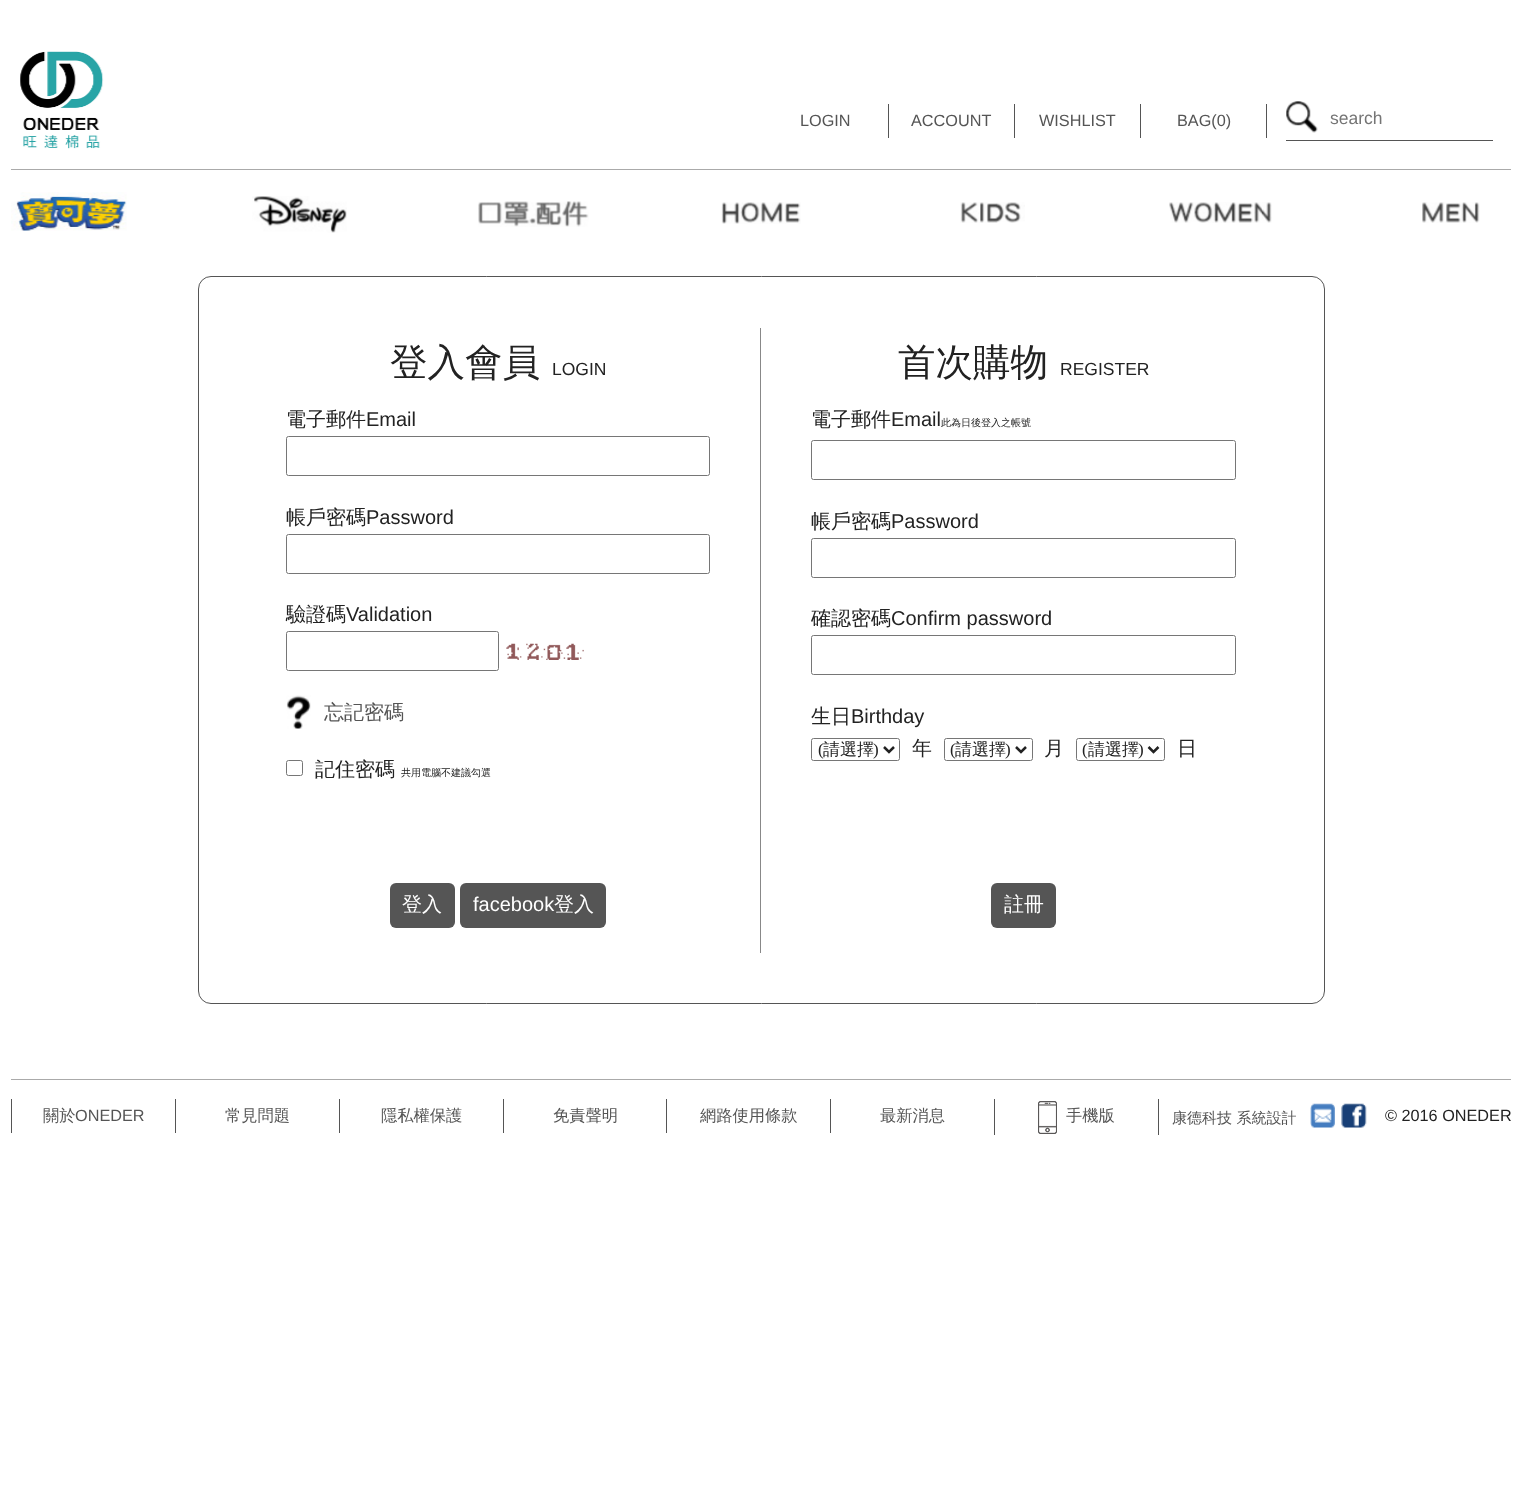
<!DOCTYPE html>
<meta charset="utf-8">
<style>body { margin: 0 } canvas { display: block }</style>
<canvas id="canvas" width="1522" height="1505"></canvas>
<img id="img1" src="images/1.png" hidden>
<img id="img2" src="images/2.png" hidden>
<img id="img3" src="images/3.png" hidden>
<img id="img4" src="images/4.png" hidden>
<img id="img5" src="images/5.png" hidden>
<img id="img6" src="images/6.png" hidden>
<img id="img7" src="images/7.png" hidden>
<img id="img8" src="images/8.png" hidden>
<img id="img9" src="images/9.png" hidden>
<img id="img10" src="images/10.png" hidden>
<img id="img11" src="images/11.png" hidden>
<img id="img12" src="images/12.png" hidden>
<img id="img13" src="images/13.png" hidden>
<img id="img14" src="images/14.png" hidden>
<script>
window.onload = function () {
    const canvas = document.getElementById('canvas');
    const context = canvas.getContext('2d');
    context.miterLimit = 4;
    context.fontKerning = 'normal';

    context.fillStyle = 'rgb(255, 255, 255)';
    context.fillRect(0, 0, 1522, 1505);
    context.drawImage(document.getElementById('img1'), 20, 51, 84, 98);
    context.fillStyle = 'rgb(85, 85, 85)';
    context.fillRect(888, 104, 1, 34);
    context.fillRect(1014, 104, 1, 34);
    context.fillRect(1140, 104, 1, 34);
    context.fillRect(1266, 104, 1, 34);
    context.drawImage(document.getElementById('img2'), 1286, 101, 32, 32);
    context.fillRect(1286, 140, 207, 1);
    context.fillStyle = 'rgb(170, 170, 170)';
    context.fillRect(11, 169, 1500, 1);
    context.drawImage(document.getElementById('img3'), 11, 192, 116, 39);
    context.drawImage(document.getElementById('img4'), 252, 196, 95, 37);
    context.drawImage(document.getElementById('img5'), 478, 201, 111, 26);
    context.drawImage(document.getElementById('img6'), 721, 202, 80, 22);
    context.drawImage(document.getElementById('img7'), 960, 202, 65, 21);
    context.drawImage(document.getElementById('img8'), 1169, 202, 103, 21);
    context.drawImage(document.getElementById('img9'), 1422, 202, 58, 21);
    context.beginPath();
    context.roundRect(198.5, 276.5, 1126, 727, 12.5);
    context.strokeStyle = 'rgb(85, 85, 85)';
    context.stroke();
    context.fillStyle = 'rgb(136, 136, 136)';
    context.fillRect(760, 328, 1, 625);
    context.beginPath();
    context.roundRect(286.5, 436.5, 423, 39, 2);
    context.strokeStyle = 'rgb(118, 118, 118)';
    context.stroke();
    context.beginPath();
    context.roundRect(286.5, 534.5, 423, 39, 2);
    context.stroke();
    context.beginPath();
    context.roundRect(286.5, 631.5, 212, 39, 2);
    context.stroke();
    context.drawImage(document.getElementById('img10'), 506, 643, 78, 17);
    context.drawImage(document.getElementById('img11'), 286, 695, 25, 34);
    context.beginPath();
    context.roundRect(286.5, 760.5, 16, 15, 2);
    context.stroke();
    context.fillStyle = 'rgb(85, 85, 85)';
    context.beginPath();
    context.roundRect(390, 883, 65, 45, 6);
    context.fill();
    context.beginPath();
    context.roundRect(460, 883, 146, 45, 6);
    context.fill();
    context.beginPath();
    context.roundRect(811.5, 440.5, 424, 39, 2);
    context.stroke();
    context.beginPath();
    context.roundRect(811.5, 538.5, 424, 39, 2);
    context.stroke();
    context.beginPath();
    context.roundRect(811.5, 635.5, 424, 39, 2);
    context.stroke();
    context.beginPath();
    context.roundRect(811.5, 738.5, 88, 22, 2);
    context.stroke();
    context.beginPath();
    context.moveTo(884, 747);
    context.lineTo(889, 752);
    context.lineTo(894, 747);
    context.strokeStyle = 'rgb(34, 34, 34)';
    context.lineWidth = 2.5;
    context.stroke();
    context.beginPath();
    context.roundRect(944.5, 738.5, 88, 22, 2);
    context.strokeStyle = 'rgb(118, 118, 118)';
    context.lineWidth = 1;
    context.stroke();
    context.beginPath();
    context.moveTo(1016, 747);
    context.lineTo(1021, 752);
    context.lineTo(1026, 747);
    context.strokeStyle = 'rgb(34, 34, 34)';
    context.lineWidth = 2.5;
    context.stroke();
    context.beginPath();
    context.roundRect(1076.5, 738.5, 88, 22, 2);
    context.strokeStyle = 'rgb(118, 118, 118)';
    context.lineWidth = 1;
    context.stroke();
    context.beginPath();
    context.moveTo(1148.5, 747);
    context.lineTo(1153.5, 752);
    context.lineTo(1158.5, 747);
    context.strokeStyle = 'rgb(34, 34, 34)';
    context.lineWidth = 2.5;
    context.stroke();
    context.beginPath();
    context.roundRect(991, 883, 65, 45, 6);
    context.fill();
    context.fillStyle = 'rgb(170, 170, 170)';
    context.fillRect(11, 1079, 1500, 1);
    context.fillStyle = 'rgb(85, 85, 85)';
    context.fillRect(11, 1099, 1, 34);
    context.fillRect(175, 1099, 1, 34);
    context.fillRect(339, 1099, 1, 34);
    context.fillRect(503, 1099, 1, 34);
    context.fillRect(666, 1099, 1, 34);
    context.fillRect(830, 1099, 1, 34);
    context.fillRect(1158, 1099, 1, 36);
    context.fillRect(994, 1099, 1, 36);
    context.drawImage(document.getElementById('img12'), 1038, 1101, 19, 33);
    context.drawImage(document.getElementById('img13'), 1310, 1103, 25, 25);
    context.drawImage(document.getElementById('img14'), 1341, 1103, 26, 25);
    context.font = '16.25px Liberation Sans';
    context.fillText('LOGIN', 800, 126);
    context.fillText('ACCOUNT', 911, 126);
    context.fillText('WISHLIST', 1039, 126);
    context.fillText('BAG(0)', 1177, 126);
    context.font = '17.5px Liberation Sans';
    context.fillStyle = 'rgb(117, 117, 117)';
    context.fillText('search', 1330, 124);
    context.font = '500 37.5px WenQuanYi Zen Hei';
    context.fillStyle = 'rgb(34, 34, 34)';
    context.fillText('登入會員', 390, 375);
    context.font = '17.5px Liberation Sans';
    context.fillText('LOGIN', 552, 375);
    context.font = '500 20px WenQuanYi Zen Hei';
    context.fillText('電子郵件', 286, 426);
    context.font = '20px Liberation Sans';
    context.fillText('Email', 366, 426);
    context.font = '500 20px WenQuanYi Zen Hei';
    context.fillText('帳戶密碼', 286, 524);
    context.font = '20px Liberation Sans';
    context.fillText('Password', 366, 524);
    context.font = '500 20px WenQuanYi Zen Hei';
    context.fillText('驗證碼', 286, 621);
    context.font = '20px Liberation Sans';
    context.fillText('Validation', 346, 621);
    context.font = '500 20px WenQuanYi Zen Hei';
    context.fillStyle = 'rgb(85, 85, 85)';
    context.fillText('忘記密碼', 324, 719);
    context.fillStyle = 'rgb(34, 34, 34)';
    context.fillText('記住密碼', 315, 776);
    context.font = '500 10px WenQuanYi Zen Hei';
    context.fillText('共用電腦不建議勾選', 401, 776);
    context.font = '500 20px WenQuanYi Zen Hei';
    context.fillStyle = 'rgb(255, 255, 255)';
    context.fillText('登入', 402, 911);
    context.font = '20px Liberation Sans';
    context.fillText('facebook', 473, 911);
    context.font = '500 20px WenQuanYi Zen Hei';
    context.fillText('登入', 554, 911);
    context.font = '500 37.5px WenQuanYi Zen Hei';
    context.fillStyle = 'rgb(34, 34, 34)';
    context.fillText('首次購物', 898, 375);
    context.font = '17.5px Liberation Sans';
    context.fillText('REGISTER', 1060, 375);
    context.font = '500 20px WenQuanYi Zen Hei';
    context.fillText('電子郵件', 811, 426);
    context.font = '20px Liberation Sans';
    context.fillText('Email', 891, 426);
    context.font = '500 10px WenQuanYi Zen Hei';
    context.fillText('此為日後登入之帳號', 941, 426);
    context.font = '500 20px WenQuanYi Zen Hei';
    context.fillText('帳戶密碼', 811, 528);
    context.font = '20px Liberation Sans';
    context.fillText('Password', 891, 528);
    context.font = '500 20px WenQuanYi Zen Hei';
    context.fillText('確認密碼', 811, 625);
    context.font = '20px Liberation Sans';
    context.fillText('Confirm password', 891, 625);
    context.font = '500 20px WenQuanYi Zen Hei';
    context.fillText('生日', 811, 723);
    context.font = '20px Liberation Sans';
    context.fillText('Birthday', 851, 723);
    context.font = '17px Liberation Serif';
    context.fillText('(', 818, 755);
    context.font = '500 17px WenQuanYi Zen Hei';
    context.fillText('請選擇', 823, 755);
    context.font = '17px Liberation Serif';
    context.fillText(')', 873, 755);
    context.font = '500 20px WenQuanYi Zen Hei';
    context.fillText('年', 912, 755);
    context.font = '17px Liberation Serif';
    context.fillText('(', 950, 755);
    context.font = '500 17px WenQuanYi Zen Hei';
    context.fillText('請選擇', 955, 755);
    context.font = '17px Liberation Serif';
    context.fillText(')', 1005, 755);
    context.font = '500 20px WenQuanYi Zen Hei';
    context.fillText('月', 1044, 755);
    context.font = '17px Liberation Serif';
    context.fillText('(', 1082, 755);
    context.font = '500 17px WenQuanYi Zen Hei';
    context.fillText('請選擇', 1088, 755);
    context.font = '17px Liberation Serif';
    context.fillText(')', 1138, 755);
    context.font = '500 20px WenQuanYi Zen Hei';
    context.fillText('日', 1177, 755);
    context.fillStyle = 'rgb(255, 255, 255)';
    context.fillText('註冊', 1004, 911);
    context.font = '500 16.25px WenQuanYi Zen Hei';
    context.fillStyle = 'rgb(85, 85, 85)';
    context.fillText('關於', 43, 1121);
    context.font = '16.25px Liberation Sans';
    context.fillText('ONEDER', 75, 1121);
    context.font = '500 16.25px WenQuanYi Zen Hei';
    context.fillText('常見問題', 225, 1121);
    context.fillText('隱私權保護', 381, 1121);
    context.fillText('免責聲明', 553, 1121);
    context.fillText('網路使用條款', 700, 1121);
    context.fillText('最新消息', 880, 1121);
    context.fillText('手機版', 1066, 1121);
    context.font = '500 15px WenQuanYi Zen Hei';
    context.fillText('康德科技 系統設計', 1172, 1123);
    context.font = '16.25px Liberation Sans';
    context.fillStyle = 'rgb(34, 34, 34)';
    context.fillText('© 2016 ONEDER', 1385, 1121);
};
</script>
